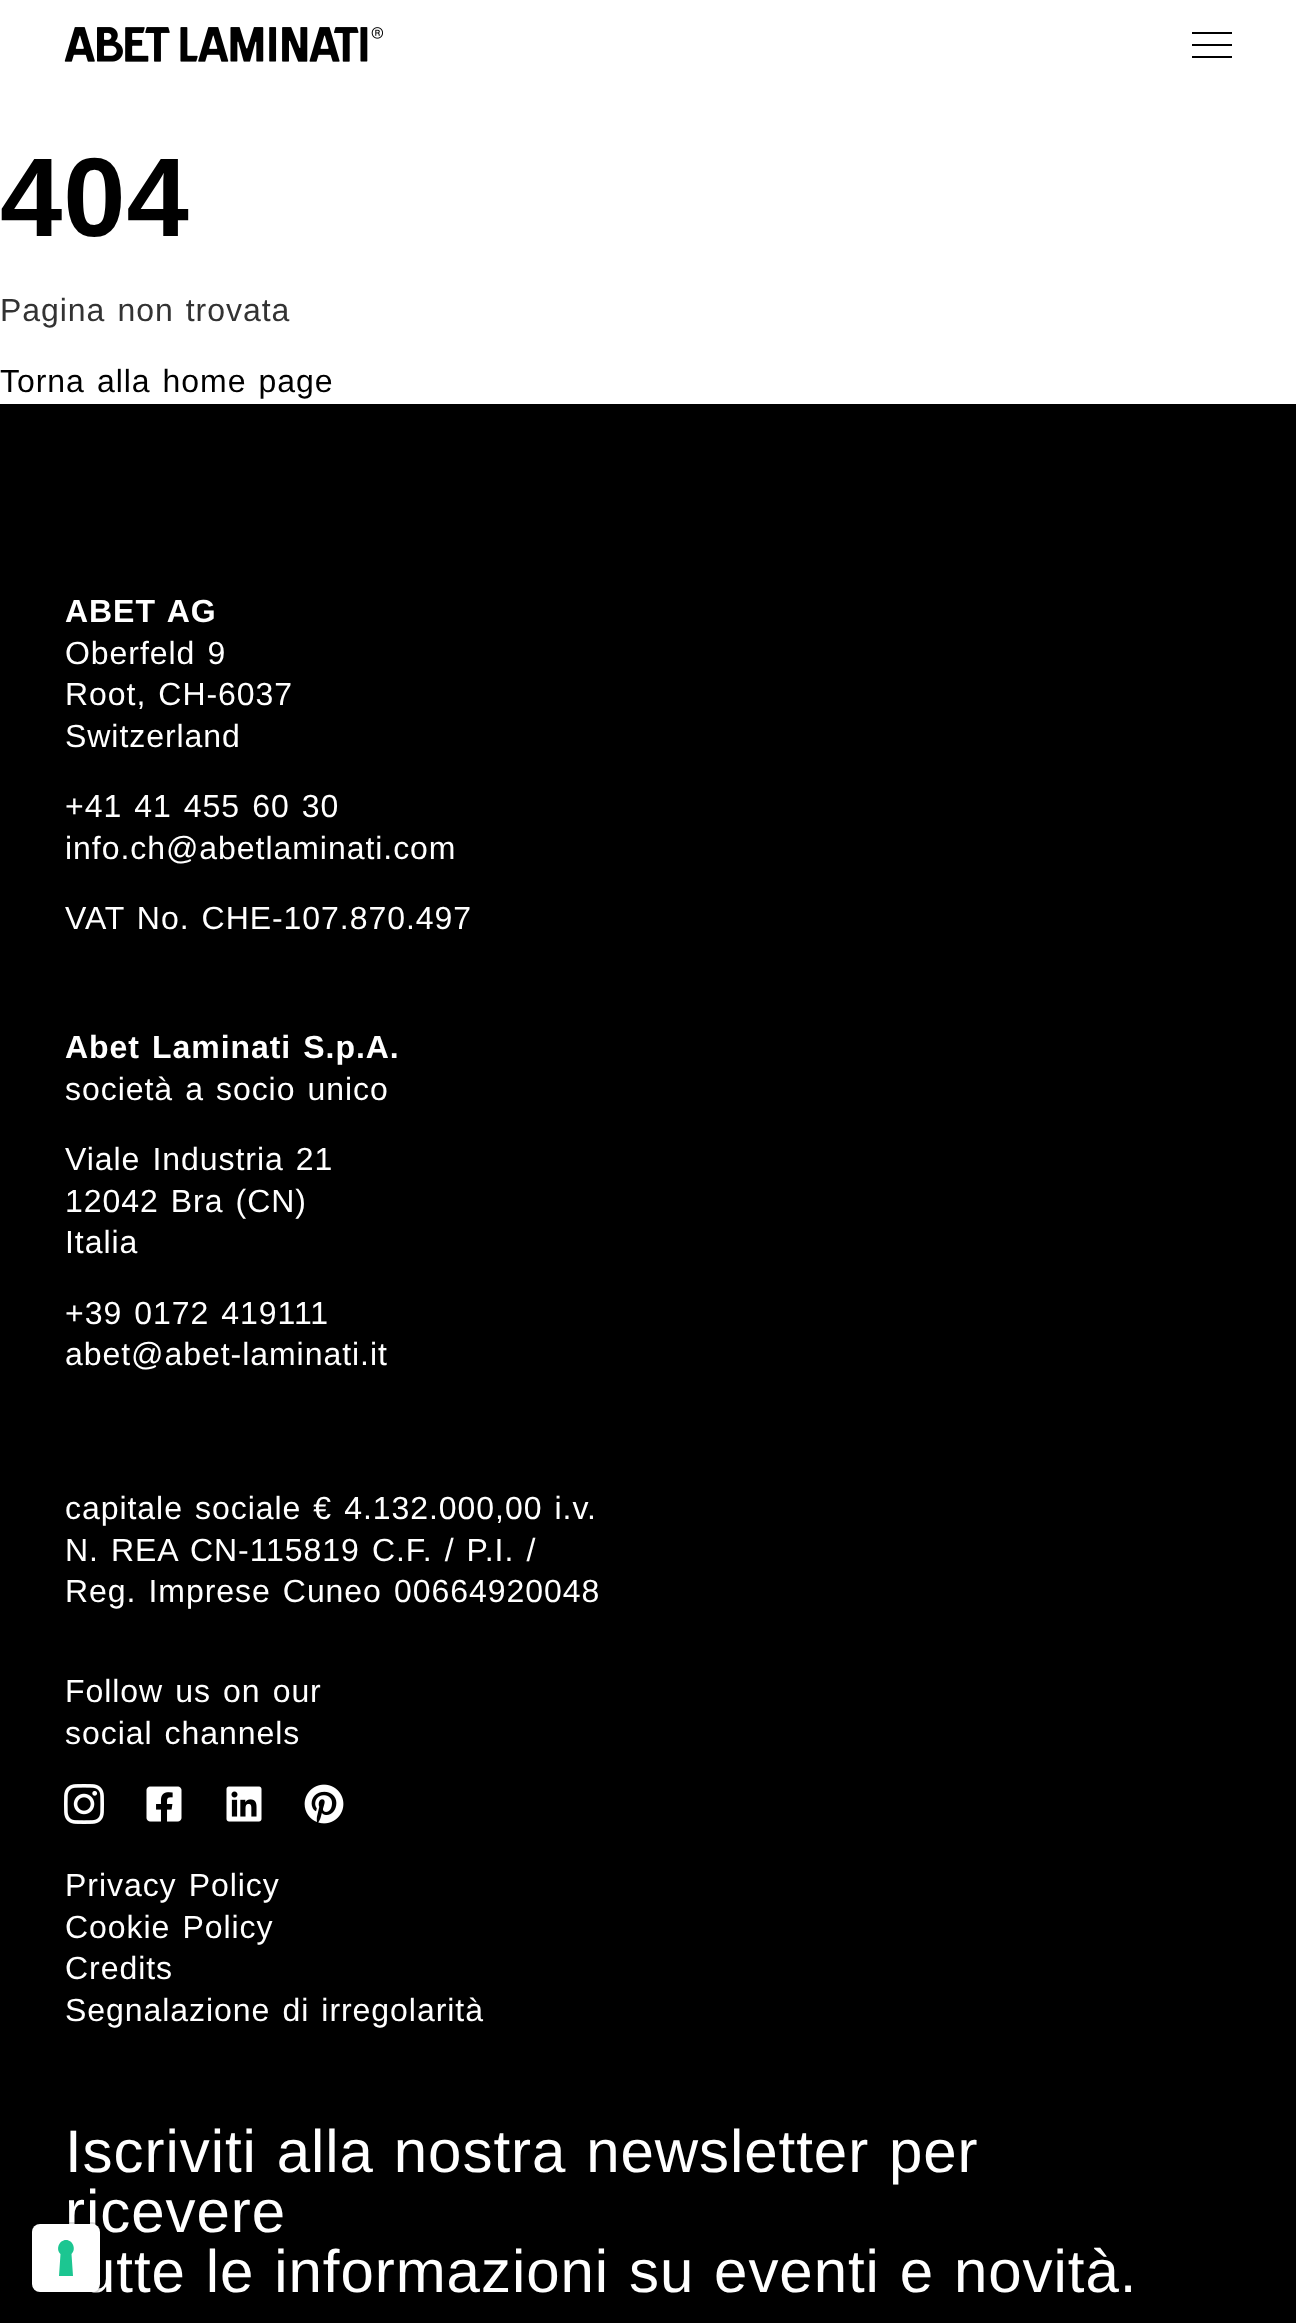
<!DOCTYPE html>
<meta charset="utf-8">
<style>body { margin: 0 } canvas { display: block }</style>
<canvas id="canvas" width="1296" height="2323"></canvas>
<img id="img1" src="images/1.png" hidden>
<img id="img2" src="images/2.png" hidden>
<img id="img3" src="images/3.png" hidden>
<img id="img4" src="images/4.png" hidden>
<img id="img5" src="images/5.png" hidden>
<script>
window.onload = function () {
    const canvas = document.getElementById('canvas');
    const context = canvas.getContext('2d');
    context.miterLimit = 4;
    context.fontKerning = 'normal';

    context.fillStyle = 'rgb(255, 255, 255)';
    context.fillRect(0, 0, 1296, 2323);
    context.drawImage(document.getElementById('img1'), 64, 27, 319, 35);
    context.fillStyle = 'rgb(0, 0, 0)';
    context.fillRect(1192, 32, 40, 2);
    context.fillRect(1192, 44, 40, 2);
    context.fillRect(1192, 56, 40, 2);
    context.fillRect(0, 404, 1296, 1919);
    context.drawImage(document.getElementById('img2'), 64, 1784, 40, 40);
    context.drawImage(document.getElementById('img3'), 146, 1786, 36, 36);
    context.drawImage(document.getElementById('img4'), 226, 1786, 36, 36);
    context.drawImage(document.getElementById('img5'), 304, 1784, 40, 40);
    context.letterSpacing = '0.95px';
    context.font = 'bold 112px Liberation Sans';
    context.fillText('404', 0, 236);
    context.wordSpacing = '2.25px';
    context.font = '32px Liberation Sans';
    context.fillStyle = 'rgb(51, 51, 51)';
    context.fillText('Pagina non trovata', 0, 321);
    context.fillStyle = 'rgb(0, 0, 0)';
    context.fillText('Torna alla home page', 0, 392);
    context.font = 'bold 32px Liberation Sans';
    context.fillStyle = 'rgb(255, 255, 255)';
    context.fillText('ABET AG', 65, 622);
    context.font = '32px Liberation Sans';
    context.fillText('Oberfeld 9', 65, 664);
    context.fillText('Root, CH-6037', 65, 705);
    context.wordSpacing = '0px';
    context.fillText('Switzerland', 65, 747);
    context.wordSpacing = '2.25px';
    context.fillText('+41 41 455 60 30', 65, 817);
    context.wordSpacing = '0px';
    context.fillText('info.ch@abetlaminati.com', 65, 859);
    context.wordSpacing = '2.25px';
    context.fillText('VAT No. CHE-107.870.497', 65, 929);
    context.font = 'bold 32px Liberation Sans';
    context.fillText('Abet Laminati S.p.A.', 65, 1058);
    context.font = '32px Liberation Sans';
    context.fillText('società a socio unico', 65, 1100);
    context.fillText('Viale Industria 21', 65, 1170);
    context.fillText('12042 Bra (CN)', 65, 1212);
    context.wordSpacing = '0px';
    context.fillText('Italia', 65, 1253);
    context.wordSpacing = '2.25px';
    context.fillText('+39 0172 419111', 65, 1324);
    context.wordSpacing = '0px';
    context.fillText('abet@abet-laminati.it', 65, 1365);
    context.wordSpacing = '2.25px';
    context.fillText('capitale sociale € 4.132.000,00 i.v.', 65, 1519);
    context.fillText('N. REA CN-115819 C.F. / P.I. /', 65, 1561);
    context.fillText('Reg. Imprese Cuneo 00664920048', 65, 1602);
    context.fillText('Follow us on our', 65, 1702);
    context.fillText('social channels', 65, 1744);
    context.fillText('Privacy Policy', 65, 1896);
    context.fillText('Cookie Policy', 65, 1938);
    context.wordSpacing = '0px';
    context.fillText('Credits', 65, 1979);
    context.wordSpacing = '2.25px';
    context.fillText('Segnalazione di irregolarità', 65, 2021);
    context.font = '60px Liberation Sans';
    context.fillText('Iscriviti alla nostra newsletter per', 65, 2172);
    context.wordSpacing = '0px';
    context.fillText('ricevere', 65, 2232);
    context.wordSpacing = '2.25px';
    context.fillText('utte le informazioni su eventi e novità.', 82, 2292);
    context.beginPath();
    context.roundRect(31, 2223, 70, 70, 9);
    context.strokeStyle = 'rgba(0, 0, 0, 0.15)';
    context.lineWidth = 2;
    context.stroke();
    context.beginPath();
    context.roundRect(32, 2224, 68, 68, 8);
    context.fill();
    context.fillStyle = 'rgb(28, 198, 145)';
    context.beginPath();
    context.moveTo(66, 2240);
    context.bezierCurveTo(73, 2240, 76.5, 2249.5, 71.5, 2254);
    context.lineTo(73, 2276);
    context.lineTo(59, 2276);
    context.lineTo(60.5, 2254);
    context.bezierCurveTo(55.5, 2249.5, 59, 2240, 66, 2240);
    context.closePath();
    context.fill('evenodd');
};
</script>
